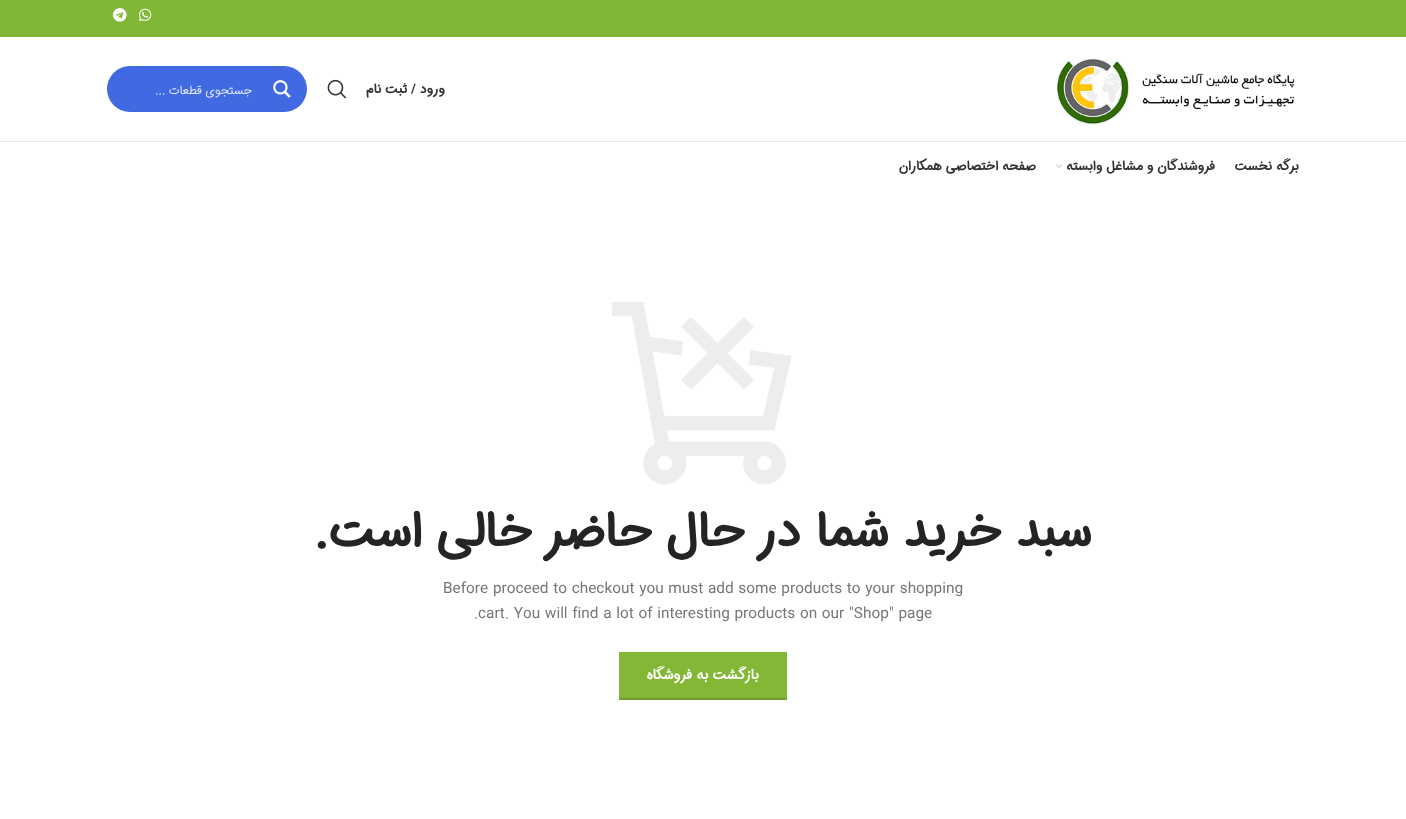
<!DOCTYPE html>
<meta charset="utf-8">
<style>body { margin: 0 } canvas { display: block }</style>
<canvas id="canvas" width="1406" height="819"></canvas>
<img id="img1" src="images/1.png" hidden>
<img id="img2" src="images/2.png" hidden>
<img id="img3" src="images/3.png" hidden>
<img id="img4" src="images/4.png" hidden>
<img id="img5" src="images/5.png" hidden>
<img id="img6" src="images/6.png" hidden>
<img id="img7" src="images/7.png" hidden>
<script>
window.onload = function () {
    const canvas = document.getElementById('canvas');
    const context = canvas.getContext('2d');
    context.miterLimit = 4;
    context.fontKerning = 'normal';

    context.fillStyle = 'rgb(255, 255, 255)';
    context.fillRect(0, 0, 1406, 819);
    context.fillStyle = 'rgb(130, 183, 53)';
    context.fillRect(0, 0, 1406, 37);
    context.drawImage(document.getElementById('img1'), 113, 8, 14, 14);
    context.drawImage(document.getElementById('img2'), 139, 8, 13, 13);
    context.fillStyle = 'rgb(230, 230, 230)';
    context.fillRect(0, 141, 1406, 1);
    context.fillStyle = 'rgb(65, 105, 225)';
    context.beginPath();
    context.roundRect(107, 66, 200, 46, 23);
    context.fill();
    context.drawImage(document.getElementById('img3'), 273, 80, 18, 18);
    context.drawImage(document.getElementById('img4'), 327, 79, 20, 20);
    context.drawImage(document.getElementById('img5'), 1056, 58, 239, 67);
    context.drawImage(document.getElementById('img6'), 1056, 164, 6, 4);
    context.drawImage(document.getElementById('img7'), 612, 302, 180, 183);
    context.fillStyle = 'rgb(131, 183, 53)';
    context.fillRect(619, 652, 168, 46);
    context.fillStyle = 'rgb(111, 156, 45)';
    context.fillRect(619, 698, 168, 2);
    context.direction = 'rtl';
    context.font = '12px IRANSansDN';
    context.fillStyle = 'rgb(227, 233, 251)';
    context.fillText('جستجوی قطعات ...', 252, 94);
    context.font = 'bold 13px IRANSansDN';
    context.fillStyle = 'rgb(51, 51, 51)';
    context.fillText('ورود / ثبت نام', 445, 93);
    context.fillText('صفحه اختصاصی همکاران', 1036, 170);
    context.fillText('فروشندگان و مشاغل وابسته', 1215, 170);
    context.fillText('برگه نخست', 1299, 170);
    context.font = 'bold 48px IRANSansDN';
    context.fillStyle = 'rgb(36, 36, 36)';
    context.fillText('سبد خرید شما در حال حاضر خالی است.', 1092, 546);
    context.direction = 'ltr';
    context.font = '15.4px IRANSansDN';
    context.fillStyle = 'rgb(119, 119, 119)';
    context.fillText('Before proceed to checkout you must add some products to your shopping', 443, 593);
    context.fillText('.', 474, 618);
    context.fillText('cart. You will find a lot of interesting products on our "Shop" page', 478, 618);
    context.direction = 'rtl';
    context.font = 'bold 14px IRANSansDN';
    context.fillStyle = 'rgb(255, 255, 255)';
    context.fillText('بازگشت به فروشگاه', 759, 679);
};
</script>
